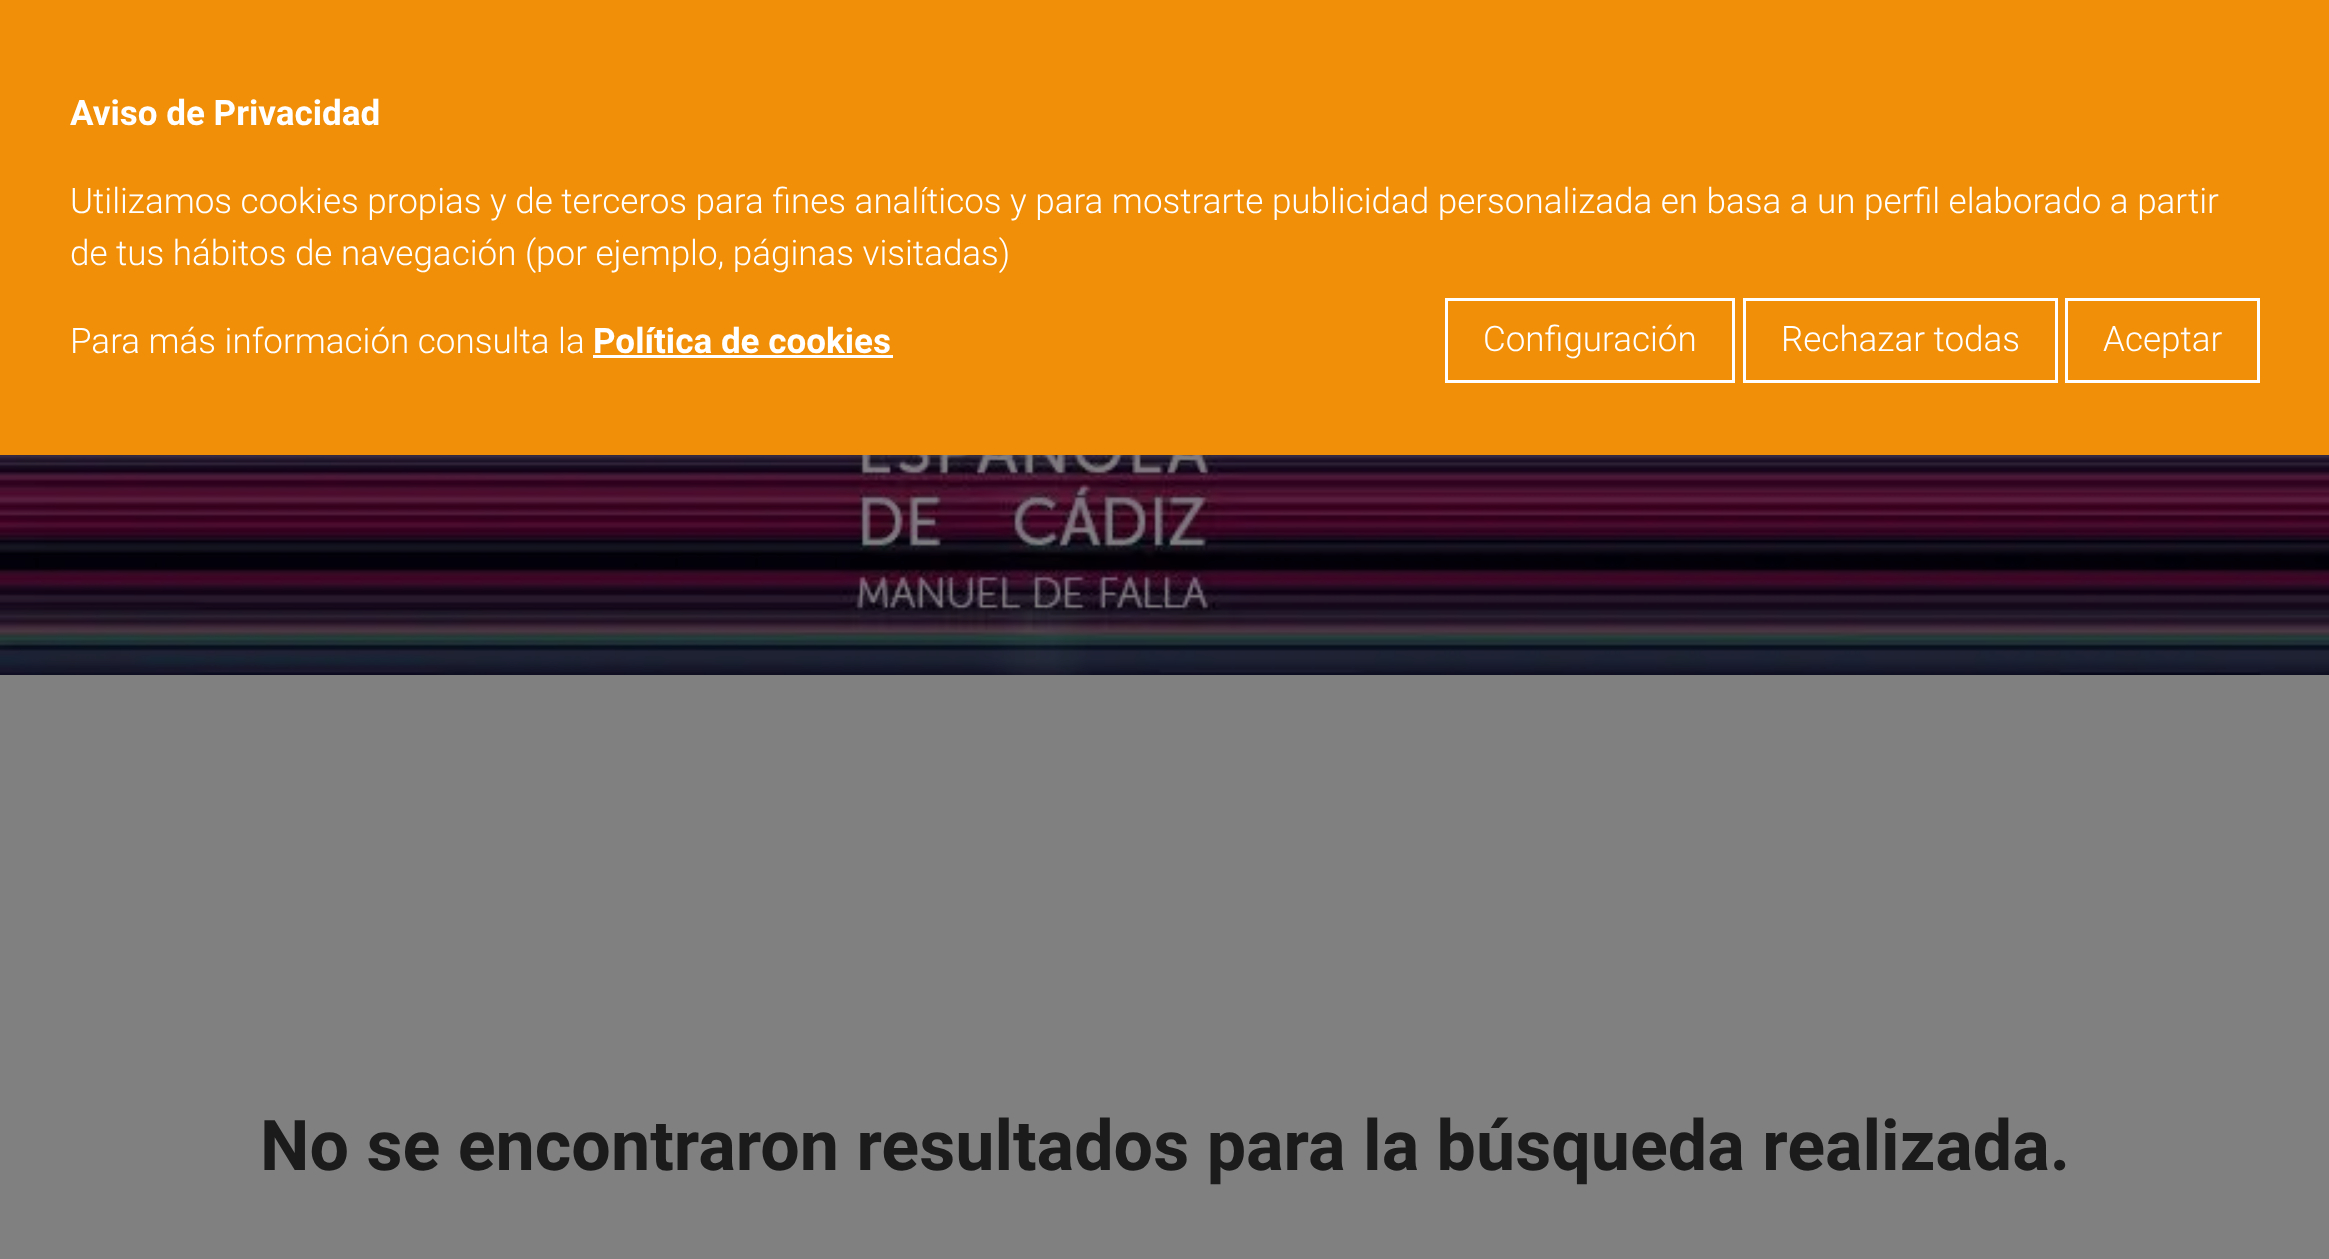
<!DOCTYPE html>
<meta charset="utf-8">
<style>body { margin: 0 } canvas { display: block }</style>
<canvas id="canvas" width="2329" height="1259"></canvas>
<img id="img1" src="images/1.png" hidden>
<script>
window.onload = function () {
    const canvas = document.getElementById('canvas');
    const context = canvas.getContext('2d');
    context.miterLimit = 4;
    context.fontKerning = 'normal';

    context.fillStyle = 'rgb(255, 255, 255)';
    context.fillRect(0, 0, 2329, 1259);
    context.fillStyle = 'rgb(242, 143, 9)';
    context.fillRect(0, 0, 2329, 455);
    context.fillStyle = 'rgb(255, 255, 255)';
    context.fillRect(593, 355, 300, 3);
    context.strokeStyle = 'rgb(255, 255, 255)';
    context.lineWidth = 3;
    context.strokeRect(1446.5, 299.5, 287, 82);
    context.strokeRect(1744.5, 299.5, 312, 82);
    context.strokeRect(2066.5, 299.5, 192, 82);
    context.drawImage(document.getElementById('img1'), 0, 455, 2329, 220);
    context.fillStyle = 'rgb(128, 128, 128)';
    context.fillRect(0, 675, 2329, 584);
    context.font = 'bold 35px Roboto';
    context.fillStyle = 'rgb(255, 255, 255)';
    context.fillText('Aviso de Privacidad', 70, 125);
    context.font = '300 35px Roboto';
    context.fillText('Utilizamos cookies propias y de terceros para fines analíticos y para mostrarte publicidad personalizada en basa a un perfil elaborado a partir', 70, 213);
    context.fillText('de tus hábitos de navegación (por ejemplo, páginas visitadas)', 70, 265);
    context.fillText('Para más información consulta la', 70, 353);
    context.font = 'bold 35px Roboto';
    context.fillText('Política de cookies', 593, 353);
    context.font = '300 35px Roboto';
    context.fillText('Configuración', 1483, 351);
    context.fillText('Rechazar todas', 1781, 351);
    context.fillText('Aceptar', 2103, 351);
    context.font = 'bold 70px Roboto';
    context.fillStyle = 'rgb(27, 27, 27)';
    context.fillText('No se encontraron resultados para la búsqueda realizada.', 260, 1170);
};
</script>
